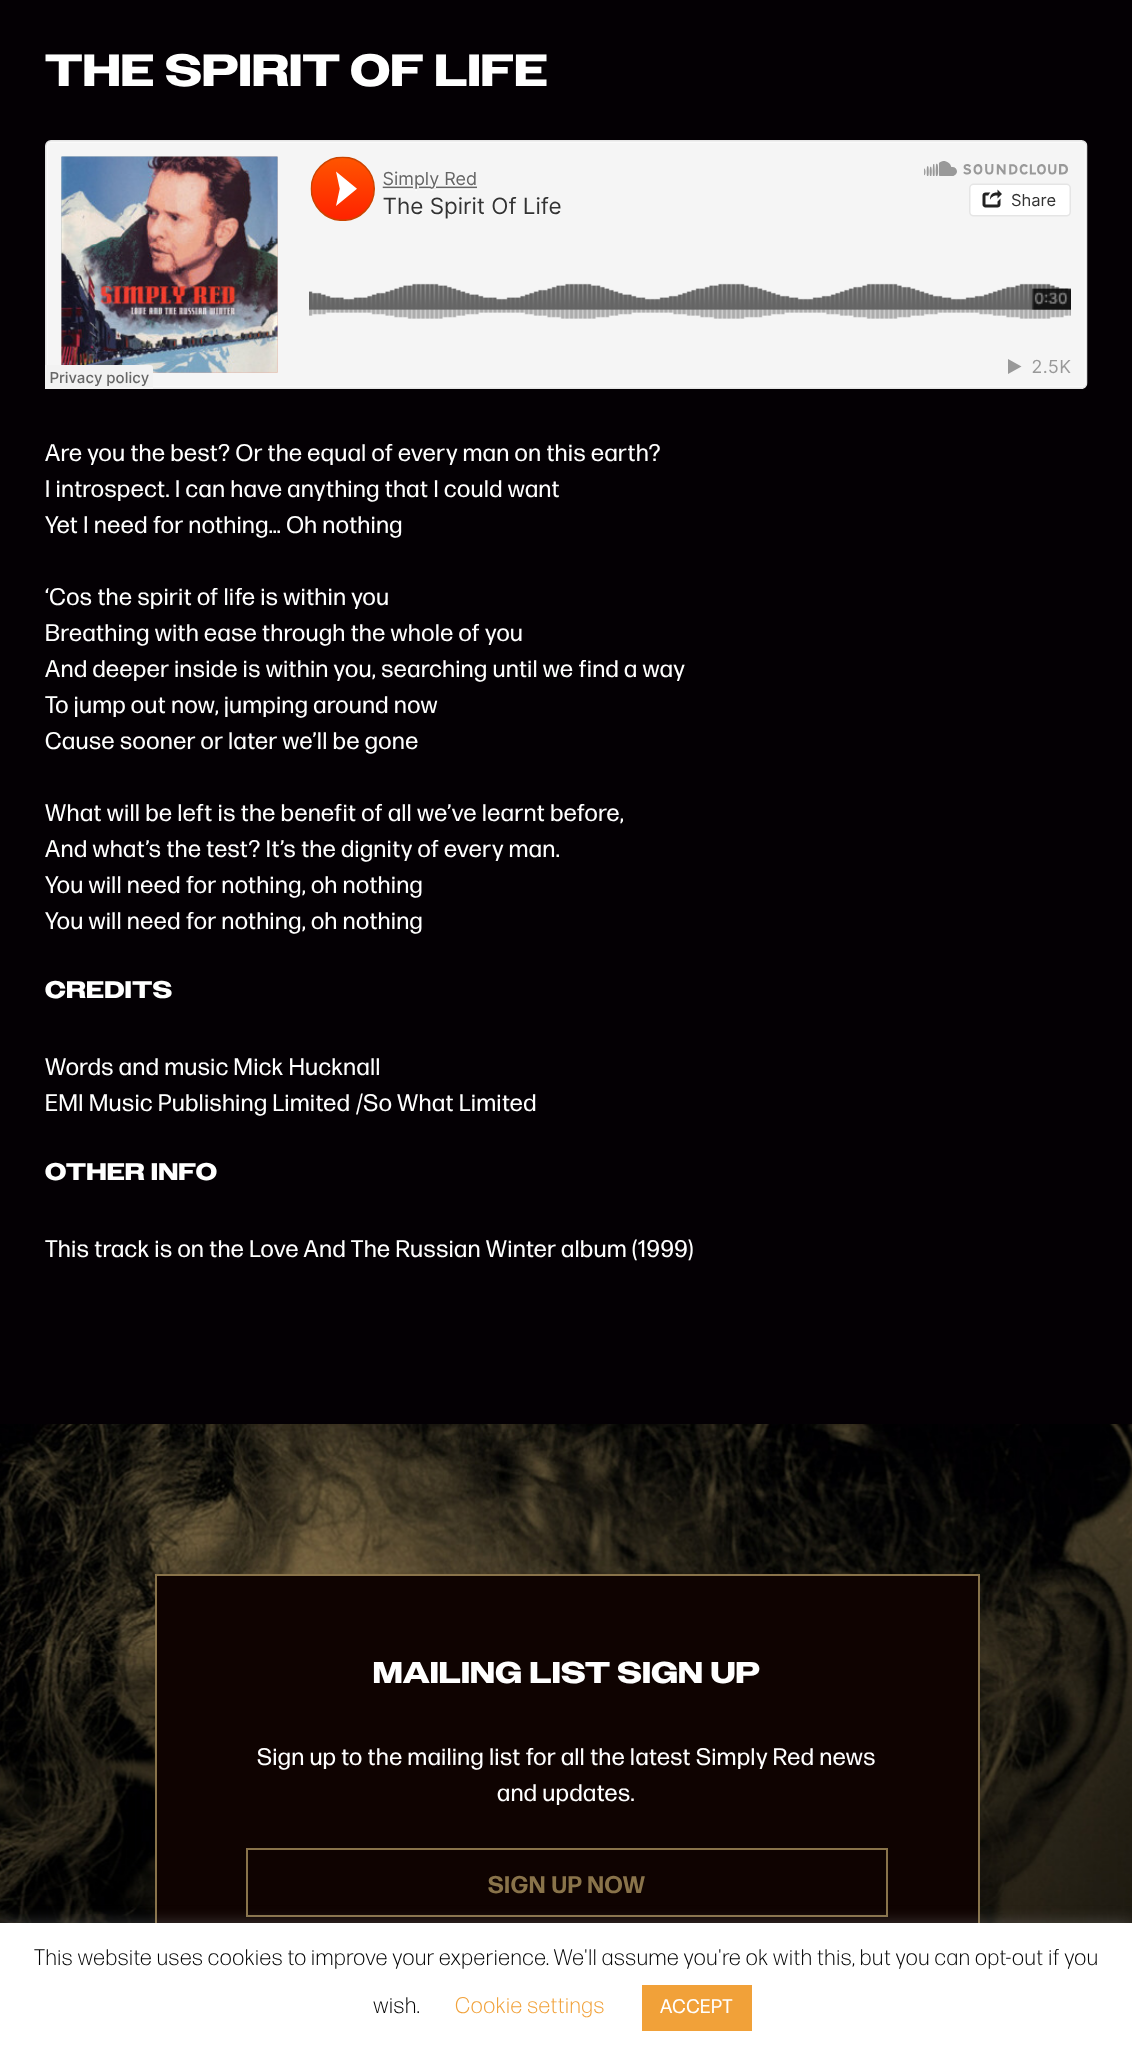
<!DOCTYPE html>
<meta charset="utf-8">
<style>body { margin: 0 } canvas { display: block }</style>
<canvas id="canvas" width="1132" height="2056"></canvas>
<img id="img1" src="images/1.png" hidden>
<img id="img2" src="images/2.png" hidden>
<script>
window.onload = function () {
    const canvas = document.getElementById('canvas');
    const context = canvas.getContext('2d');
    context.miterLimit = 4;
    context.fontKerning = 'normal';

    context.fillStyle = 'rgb(4, 0, 4)';
    context.fillRect(0, 0, 1132, 2056);
    context.drawImage(document.getElementById('img1'), 45, 140, 1043, 249);
    context.drawImage(document.getElementById('img2'), 0, 1424, 1132, 499);
    context.fillStyle = 'rgb(15, 3, 1)';
    context.fillRect(157, 1576, 821, 347);
    context.strokeStyle = 'rgb(137, 115, 74)';
    context.lineWidth = 2;
    context.strokeRect(156, 1575, 823, 469);
    context.strokeRect(247, 1849, 640, 67);
    context.fillStyle = 'rgba(172, 171, 171, 0.3)';
    context.filter = 'blur(7.5px)';
    context.beginPath();
    context.rect(0, 1922, 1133, 133);
    context.fill();
    context.filter = 'none';
    context.fillStyle = 'rgb(255, 255, 255)';
    context.fillRect(0, 1923, 1132, 133);
    context.fillStyle = 'rgb(241, 161, 57)';
    context.fillRect(642, 1985, 110, 46);
    context.letterSpacing = '0.6px';
    context.font = 'bold 45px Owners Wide';
    context.fillStyle = 'rgb(255, 255, 255)';
    context.fillText('THE SPIRIT OF LIFE', 45, 86);
    context.font = '24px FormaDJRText';
    context.fillText('Are you the best? Or the equal of every man on this earth?', 45, 461);
    context.fillText('I introspect. I can have anything that I could want', 45, 497);
    context.fillText('Yet I need for nothing… Oh nothing', 45, 533);
    context.fillText('‘Cos the spirit of life is within you', 45, 605);
    context.fillText('Breathing with ease through the whole of you', 45, 641);
    context.fillText('And deeper inside is within you, searching until we find a way', 45, 677);
    context.fillText('To jump out now, jumping around now', 45, 713);
    context.fillText('Cause sooner or later we’ll be gone', 45, 749);
    context.fillText('What will be left is the benefit of all we’ve learnt before,', 45, 821);
    context.fillText('And what’s the test? It’s the dignity of every man.', 45, 857);
    context.fillText('You will need for nothing, oh nothing', 45, 893);
    context.fillText('You will need for nothing, oh nothing', 45, 929);
    context.font = 'bold 24px Owners Wide';
    context.fillText('CREDITS', 45, 998);
    context.font = '24px FormaDJRText';
    context.fillText('Words and music Mick Hucknall', 45, 1075);
    context.fillText('EMI Music Publishing Limited /So What Limited', 45, 1111);
    context.font = 'bold 24px Owners Wide';
    context.fillText('OTHER INFO', 45, 1180);
    context.font = '24px FormaDJRText';
    context.fillText('This track is on the Love And The Russian Winter album (1999)', 45, 1257);
    context.font = 'bold 30px Owners Wide';
    context.fillText('MAILING LIST SIGN UP', 373, 1683);
    context.font = '24px FormaDJRText';
    context.fillText('Sign up to the mailing list for all the latest Simply Red news', 257, 1765);
    context.fillText('and updates.', 497, 1801);
    context.font = 'bold 24px FormaDJRText';
    context.fillStyle = 'rgb(137, 115, 74)';
    context.fillText('SIGN UP NOW', 488, 1893);
    context.font = '300 22.5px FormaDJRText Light';
    context.fillStyle = 'rgb(0, 0, 0)';
    context.fillText('This website uses cookies to improve your experience. We\'ll assume you\'re ok with this, but you can opt-out if you', 34, 1965);
    context.fillText('wish.', 373, 2013);
    context.fillStyle = 'rgb(241, 161, 57)';
    context.fillText('Cookie settings', 455, 2013);
    context.font = '19.5px FormaDJRText';
    context.fillStyle = 'rgb(255, 255, 255)';
    context.fillText('ACCEPT', 660, 2013);
};
</script>
